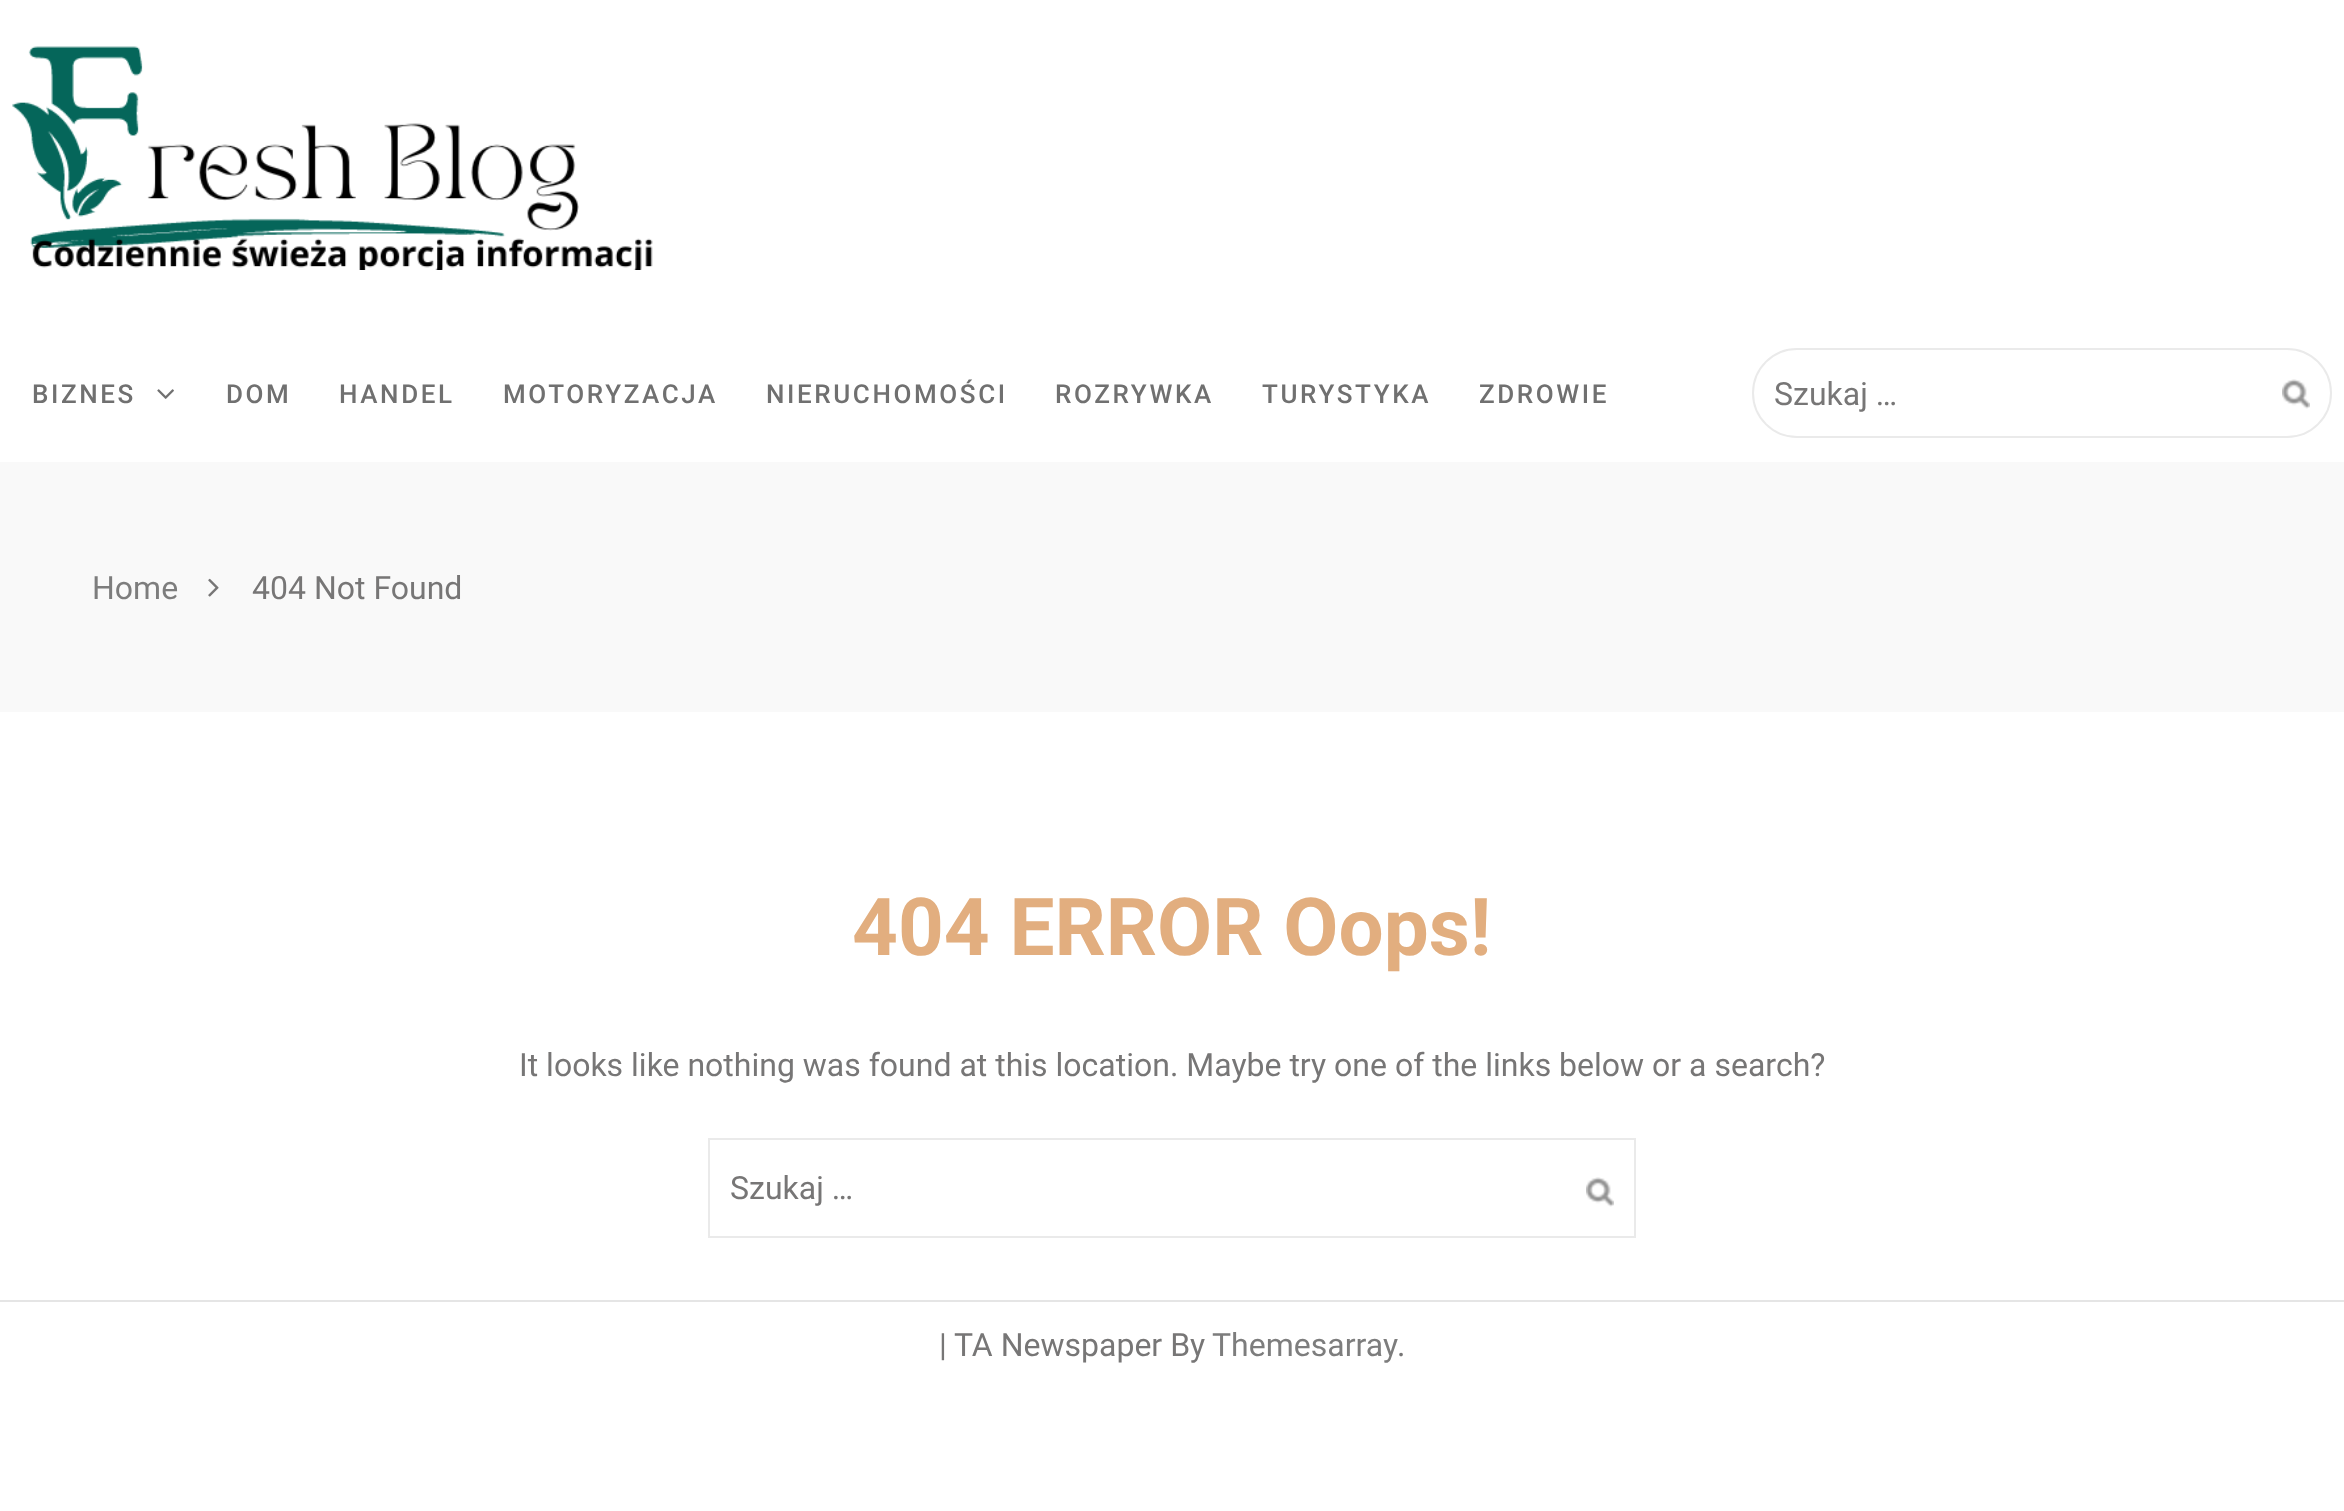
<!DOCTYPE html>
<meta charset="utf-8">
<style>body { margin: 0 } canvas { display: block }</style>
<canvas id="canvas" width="2344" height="1511"></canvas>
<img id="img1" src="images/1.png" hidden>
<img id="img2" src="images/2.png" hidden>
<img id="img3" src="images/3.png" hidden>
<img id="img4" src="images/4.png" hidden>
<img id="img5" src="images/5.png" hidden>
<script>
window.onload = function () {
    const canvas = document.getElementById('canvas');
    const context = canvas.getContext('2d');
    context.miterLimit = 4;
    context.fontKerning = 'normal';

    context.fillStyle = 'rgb(255, 255, 255)';
    context.fillRect(0, 0, 2344, 1511);
    context.drawImage(document.getElementById('img1'), 12, 46, 641, 224);
    context.drawImage(document.getElementById('img2'), 157, 389, 17, 10);
    context.beginPath();
    context.roundRect(1753, 349, 578, 88, 44);
    context.strokeStyle = 'rgb(234, 234, 234)';
    context.lineWidth = 2;
    context.stroke();
    context.drawImage(document.getElementById('img3'), 2282, 379, 28, 30);
    context.fillStyle = 'rgb(249, 249, 249)';
    context.fillRect(0, 462, 2344, 250);
    context.drawImage(document.getElementById('img4'), 208, 578, 11, 19);
    context.strokeRect(709, 1139, 926, 98);
    context.drawImage(document.getElementById('img5'), 1586, 1177, 28, 30);
    context.fillStyle = 'rgb(229, 229, 229)';
    context.fillRect(0, 1300, 2344, 2);
    context.letterSpacing = '2.6px';
    context.font = '500 26px Roboto';
    context.fillStyle = 'rgb(112, 112, 112)';
    context.fillText('BIZNES', 32, 403);
    context.fillText('DOM', 226, 403);
    context.fillText('HANDEL', 339, 403);
    context.fillText('MOTORYZACJA', 503, 403);
    context.fillText('NIERUCHOMOŚCI', 766, 403);
    context.fillText('ROZRYWKA', 1055, 403);
    context.fillText('TURYSTYKA', 1262, 403);
    context.fillText('ZDROWIE', 1479, 403);
    context.letterSpacing = '0px';
    context.font = '32px Roboto';
    context.fillStyle = 'rgb(119, 118, 118)';
    context.fillText('Szukaj …', 1774, 405);
    context.fillStyle = 'rgb(125, 125, 125)';
    context.fillText('Home', 92, 599);
    context.fillStyle = 'rgb(119, 118, 118)';
    context.fillText('404 Not Found', 252, 599);
    context.font = 'bold 80px Roboto';
    context.fillStyle = 'rgb(226, 174, 127)';
    context.fillText('404 ERROR Oops!', 852, 955);
    context.font = '32px Roboto';
    context.fillStyle = 'rgb(119, 118, 118)';
    context.fillText('It looks like nothing was found at this location. Maybe try one of the links below or a search?', 519, 1076);
    context.fillText('Szukaj …', 730, 1199);
    context.fillText('|', 939, 1356);
    context.fillText('TA Newspaper By', 954, 1356);
    context.fillStyle = 'rgb(125, 125, 125)';
    context.fillText('Themesarray', 1212, 1356);
    context.fillStyle = 'rgb(119, 118, 118)';
    context.fillText('.', 1397, 1356);
};
</script>
